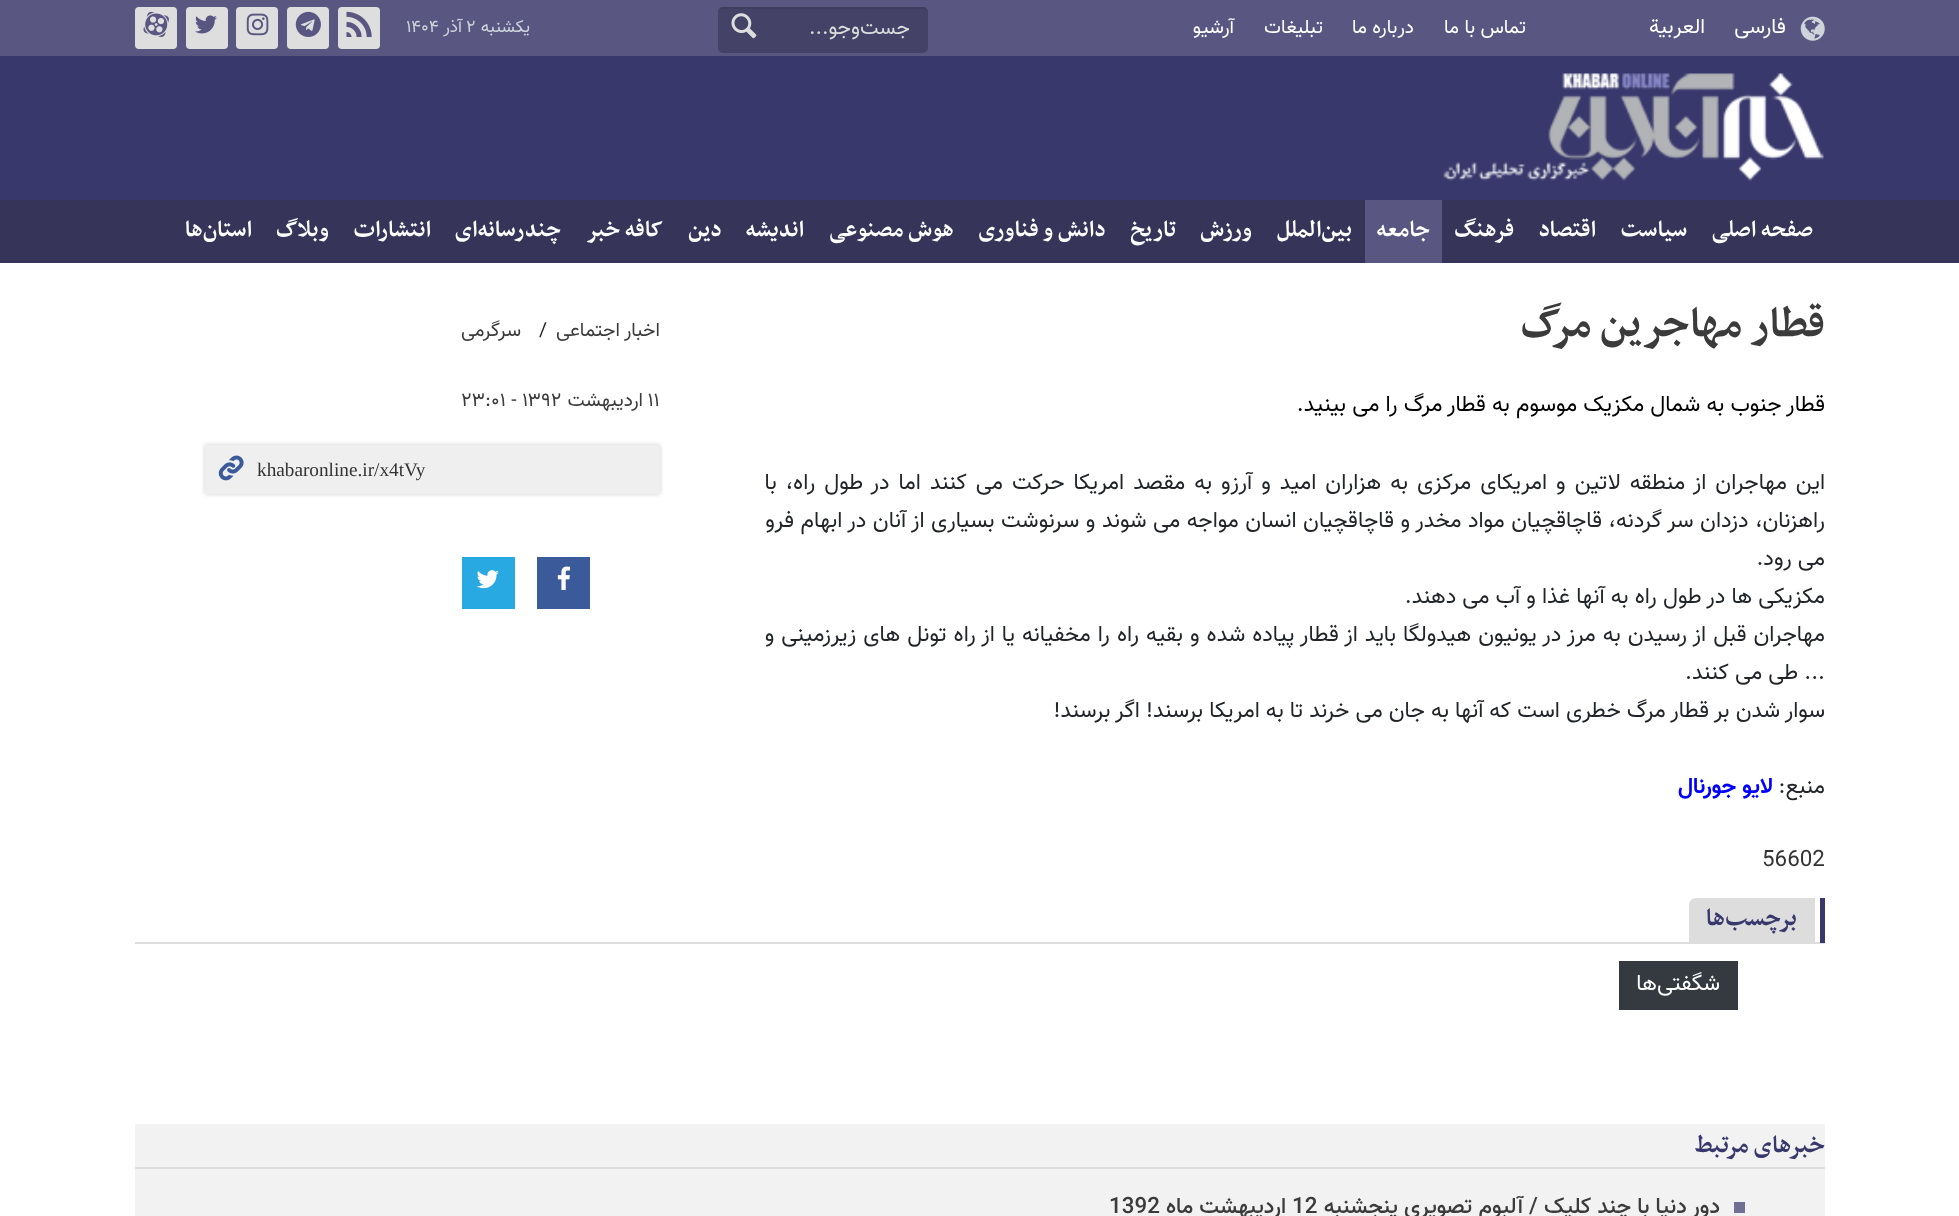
<!DOCTYPE html>
<meta charset="utf-8">
<style>body { margin: 0 } canvas { display: block }</style>
<canvas id="canvas" width="1959" height="1216"></canvas>
<img id="img1" src="images/1.png" hidden>
<img id="img2" src="images/2.png" hidden>
<img id="img3" src="images/3.png" hidden>
<img id="img4" src="images/4.png" hidden>
<img id="img5" src="images/5.png" hidden>
<img id="img6" src="images/6.png" hidden>
<img id="img7" src="images/7.png" hidden>
<img id="img8" src="images/8.png" hidden>
<img id="img9" src="images/9.png" hidden>
<img id="img10" src="images/10.png" hidden>
<img id="img11" src="images/11.png" hidden>
<script>
window.onload = function () {
    const canvas = document.getElementById('canvas');
    const context = canvas.getContext('2d');
    context.miterLimit = 4;
    context.fontKerning = 'normal';

    context.fillStyle = 'rgb(255, 255, 255)';
    context.fillRect(0, 0, 1959, 1216);
    context.fillStyle = 'rgb(56, 56, 108)';
    context.fillRect(0, 56, 1959, 144);
    context.fillStyle = 'rgb(89, 87, 130)';
    context.fillRect(0, 0, 1959, 56);
    context.drawImage(document.getElementById('img1'), 1800, 16, 25, 25);
    context.fillStyle = 'rgb(68, 67, 103)';
    context.beginPath();
    context.roundRect(718, 7, 210, 46, 5);
    context.fill();
    context.fillStyle = 'rgba(0, 0, 0, 0.07)';
    context.beginPath();
    context.moveTo(723, 9);
    context.lineTo(922, 9);
    context.bezierCurveTo(925, 9, 928, 11, 928, 14);
    context.lineTo(928, 12);
    context.bezierCurveTo(928, 9, 926, 7, 923, 7);
    context.lineTo(723, 7);
    context.bezierCurveTo(720, 7, 718, 9, 718, 12);
    context.lineTo(718, 14);
    context.bezierCurveTo(718, 11, 720, 9, 723, 9);
    context.closePath();
    context.fill();
    context.drawImage(document.getElementById('img2'), 731, 13, 26, 26);
    context.fillStyle = 'rgb(222, 222, 222)';
    context.beginPath();
    context.roundRect(338, 7, 42, 42, 4);
    context.fill();
    context.drawImage(document.getElementById('img3'), 346, 11, 26, 26);
    context.beginPath();
    context.roundRect(287, 7, 42, 42, 4);
    context.fill();
    context.drawImage(document.getElementById('img4'), 295, 11, 26, 26);
    context.beginPath();
    context.roundRect(236, 7, 42, 42, 4);
    context.fill();
    context.drawImage(document.getElementById('img5'), 246, 13, 23, 23);
    context.beginPath();
    context.roundRect(186, 7, 42, 42, 4);
    context.fill();
    context.drawImage(document.getElementById('img6'), 195, 15, 22, 19);
    context.beginPath();
    context.roundRect(135, 7, 42, 42, 4);
    context.fill();
    context.drawImage(document.getElementById('img7'), 143, 11, 26, 26);
    context.drawImage(document.getElementById('img8'), 1443, 73, 381, 108);
    context.fillStyle = 'rgb(54, 53, 89)';
    context.fillRect(0, 200, 1959, 63);
    context.fillStyle = 'rgb(89, 87, 130)';
    context.fillRect(1365, 200, 77, 63);
    context.fillStyle = 'rgb(204, 204, 204)';
    context.filter = 'blur(2px)';
    context.beginPath();
    context.rect(205, 445, 455, 49);
    context.fill();
    context.filter = 'none';
    context.fillStyle = 'rgb(239, 239, 239)';
    context.fillRect(205, 445, 455, 49);
    context.drawImage(document.getElementById('img9'), 218, 455, 26, 26);
    context.fillStyle = 'rgb(59, 90, 154)';
    context.fillRect(537, 557, 53, 52);
    context.drawImage(document.getElementById('img10'), 557, 566, 13, 24);
    context.fillStyle = 'rgb(40, 169, 226)';
    context.fillRect(462, 557, 53, 52);
    context.drawImage(document.getElementById('img11'), 476, 570, 23, 19);
    context.fillStyle = 'rgb(221, 221, 221)';
    context.fillRect(135, 942, 1690, 2);
    context.beginPath();
    context.roundRect(1689, 898, 126, 45, [7, 0, 0, 0]);
    context.fill();
    context.fillStyle = 'rgb(56, 56, 108)';
    context.fillRect(1820, 898, 5, 45);
    context.fillStyle = 'rgb(52, 58, 64)';
    context.fillRect(1619, 961, 119, 49);
    context.fillStyle = 'rgb(242, 242, 242)';
    context.fillRect(135, 1124, 1690, 92);
    context.fillStyle = 'rgb(221, 221, 221)';
    context.fillRect(135, 1167, 1690, 2);
    context.fillStyle = 'rgb(112, 112, 148)';
    context.fillRect(1734, 1202, 11, 11);
    context.direction = 'rtl';
    context.font = '21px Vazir';
    context.fillStyle = 'rgb(255, 255, 255)';
    context.fillText('فارسی', 1786, 33);
    context.fillText('العربية', 1705, 33);
    context.font = '19.5px Vazir';
    context.fillText('تماس با ما', 1526, 33);
    context.fillText('درباره ما', 1414, 33);
    context.fillText('تبلیغات', 1323, 33);
    context.fillText('آرشیو', 1234, 33);
    context.font = '21px Vazir';
    context.fillStyle = 'rgb(221, 221, 221)';
    context.fillText('جست‌وجو...', 910, 34);
    context.font = '17.5px Vazir';
    context.fillStyle = 'rgb(206, 212, 218)';
    context.fillText('یکشنبه', 530, 32);
    context.direction = 'ltr';
    context.fillText('۲', 466, 32);
    context.direction = 'rtl';
    context.fillText('آذر', 462, 32);
    context.direction = 'ltr';
    context.fillText('۱۴۰۴', 406, 32);
    context.direction = 'rtl';
    context.font = 'bold 26.25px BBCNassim';
    context.fillStyle = 'rgb(255, 255, 255)';
    context.fillText('صفحه اصلی', 1813, 236);
    context.fillText('سیاست', 1687, 236);
    context.fillText('اقتصاد', 1596, 236);
    context.fillText('فرهنگ', 1514, 236);
    context.fillText('جامعه', 1430, 236);
    context.fillText('بین‌الملل', 1352, 236);
    context.fillText('ورزش', 1252, 236);
    context.fillText('تاریخ', 1176, 236);
    context.fillText('دانش و فناوری', 1106, 236);
    context.fillText('هوش مصنوعی', 954, 236);
    context.fillText('اندیشه', 804, 236);
    context.fillText('دین', 722, 236);
    context.fillText('کافه خبر', 663, 236);
    context.fillText('چندرسانه‌ای', 561, 236);
    context.fillText('انتشارات', 431, 236);
    context.fillText('وبلاگ', 329, 236);
    context.fillText('استان‌ها', 252, 236);
    context.font = 'bold 49px BBCNassim';
    context.fillStyle = 'rgb(59, 59, 59)';
    context.fillText('قطار مهاجرین مرگ', 1825, 336);
    context.font = '19.5px Vazir';
    context.fillText('اخبار اجتماعی', 660, 336);
    context.direction = 'ltr';
    context.fillStyle = 'rgb(33, 37, 41)';
    context.fillText('/', 539, 336);
    context.direction = 'rtl';
    context.fillStyle = 'rgb(59, 59, 59)';
    context.fillText('سرگرمی', 521, 336);
    context.direction = 'ltr';
    context.fillText('۱۱', 648, 406);
    context.direction = 'rtl';
    context.fillText('اردیبهشت', 643, 406);
    context.direction = 'ltr';
    context.fillText('۲۳:۰۱ - ۱۳۹۲', 461, 406);
    context.font = '19.25px Liberation Serif';
    context.fillStyle = 'rgb(51, 51, 51)';
    context.fillText('khabaronline.ir/x4tVy', 257, 476);
    context.direction = 'rtl';
    context.font = '22.4px Vazir';
    context.fillStyle = 'rgb(0, 0, 0)';
    context.fillText('قطار جنوب به شمال مکزیک موسوم به قطار مرگ را می بینید.', 1825, 411);
    context.wordSpacing = '2.9px';
    context.fillStyle = 'rgb(33, 37, 41)';
    context.fillText('این مهاجران از منطقه لاتین و امریکای مرکزی به هزاران امید و آرزو به مقصد امریکا حرکت می کنند اما در طول راه، با', 1825, 489);
    context.wordSpacing = '0.4px';
    context.fillText('راهزنان، دزدان سر گردنه، قاچاقچیان مواد مخدر و قاچاقچیان انسان مواجه می شوند و سرنوشت بسیاری از آنان در ابهام فرو', 1825, 527);
    context.wordSpacing = '0px';
    context.fillText('می رود.', 1825, 565);
    context.fillText('مکزیکی ها در طول راه به آنها غذا و آب می دهند.', 1825, 603);
    context.wordSpacing = '0.9px';
    context.fillText('مهاجران قبل از رسیدن به مرز در یونیون هیدولگا باید از قطار پیاده شده و بقیه راه را مخفیانه یا از راه تونل های زیرزمینی و', 1825, 641);
    context.wordSpacing = '0px';
    context.fillText('... طی می کنند.', 1825, 679);
    context.fillText('سوار شدن بر قطار مرگ خطری است که آنها به جان می خرند تا به امریکا برسند! اگر برسند!', 1825, 717);
    context.fillText('منبع:', 1825, 793);
    context.font = 'bold 22.4px Vazir';
    context.fillStyle = 'rgb(0, 0, 255)';
    context.fillText('لایو جورنال', 1773, 793);
    context.direction = 'ltr';
    context.font = '22.4px Vazir';
    context.fillStyle = 'rgb(51, 51, 51)';
    context.fillText('56602', 1762, 866);
    context.direction = 'rtl';
    context.font = 'bold 28px BBCNassim';
    context.fillStyle = 'rgb(56, 56, 108)';
    context.fillText('برچسب‌ها', 1797, 925);
    context.font = '22.4px Vazir';
    context.fillStyle = 'rgb(255, 255, 255)';
    context.fillText('شگفتی‌ها', 1720, 990);
    context.font = 'bold 28px BBCNassim';
    context.fillStyle = 'rgb(56, 56, 108)';
    context.fillText('خبرهای مرتبط', 1825, 1152);
    context.font = '500 22.4px Vazir';
    context.fillStyle = 'rgb(59, 59, 59)';
    context.fillText('دور دنیا با چند کلیک / آلبوم تصویری پنجشنبه', 1720, 1213);
    context.direction = 'ltr';
    context.fillText('12', 1292, 1213);
    context.direction = 'rtl';
    context.fillText('اردیبهشت ماه', 1286, 1213);
    context.direction = 'ltr';
    context.fillText('1392', 1109, 1213);
};
</script>
